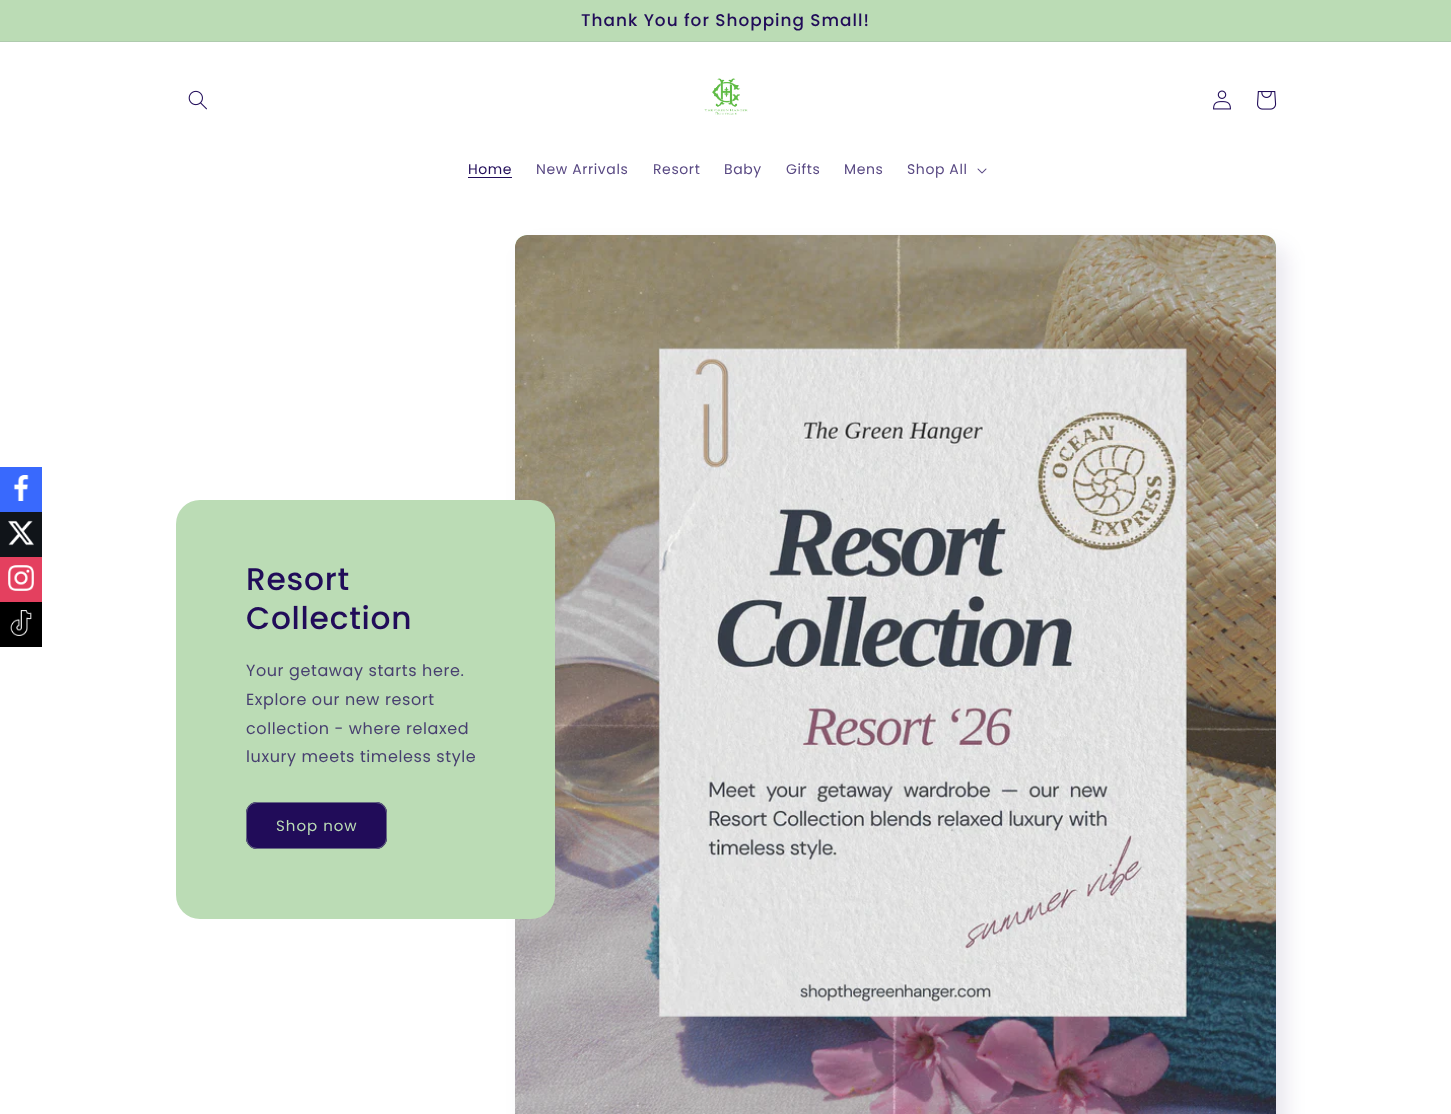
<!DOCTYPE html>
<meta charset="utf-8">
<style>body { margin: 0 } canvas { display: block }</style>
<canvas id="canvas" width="1451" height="1114"></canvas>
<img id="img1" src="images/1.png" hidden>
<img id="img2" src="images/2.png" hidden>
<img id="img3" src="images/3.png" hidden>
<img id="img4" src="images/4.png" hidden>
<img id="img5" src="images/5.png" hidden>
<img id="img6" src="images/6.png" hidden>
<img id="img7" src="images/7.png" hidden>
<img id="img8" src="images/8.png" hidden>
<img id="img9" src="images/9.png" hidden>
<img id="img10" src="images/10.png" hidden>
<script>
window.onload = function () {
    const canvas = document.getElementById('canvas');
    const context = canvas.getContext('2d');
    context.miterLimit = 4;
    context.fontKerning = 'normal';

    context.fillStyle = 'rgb(255, 255, 255)';
    context.fillRect(0, 0, 1451, 1114);
    context.fillStyle = 'rgb(187, 220, 181)';
    context.fillRect(0, 0, 1451, 41);
    context.fillStyle = 'rgb(175, 203, 174)';
    context.fillRect(0, 41, 1451, 1);
    context.drawImage(document.getElementById('img1'), 188, 90, 19, 20);
    context.drawImage(document.getElementById('img2'), 704, 78, 44, 37);
    context.drawImage(document.getElementById('img3'), 1213, 90, 18, 20);
    context.drawImage(document.getElementById('img4'), 1257, 91, 20, 19);
    context.fillStyle = 'rgb(33, 12, 89)';
    context.fillRect(468, 177, 44, 1);
    context.drawImage(document.getElementById('img5'), 977, 168, 10, 6);
    context.fillStyle = 'rgb(57, 105, 253)';
    context.fillRect(0, 467, 42, 45);
    context.drawImage(document.getElementById('img6'), 13, 475, 16, 26);
    context.fillStyle = 'rgb(16, 20, 25)';
    context.fillRect(0, 512, 42, 45);
    context.drawImage(document.getElementById('img7'), 8, 520, 26, 26);
    context.fillStyle = 'rgb(228, 64, 95)';
    context.fillRect(0, 557, 42, 45);
    context.drawImage(document.getElementById('img8'), 8, 565, 26, 26);
    context.fillStyle = 'rgb(0, 0, 0)';
    context.fillRect(0, 602, 42, 45);
    context.drawImage(document.getElementById('img9'), 10, 610, 22, 26);
    context.fillStyle = 'rgba(33, 12, 89, 0.1)';
    context.filter = 'blur(10px)';
    context.beginPath();
    context.roundRect(525, 247, 761, 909, 12);
    context.fill();
    context.filter = 'none';
    context.fillStyle = 'rgb(187, 220, 181)';
    context.beginPath();
    context.roundRect(515, 235, 761, 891, 12);
    context.fill();
    context.drawImage(document.getElementById('img10'), 515, 235, 761, 879);
    context.beginPath();
    context.roundRect(176, 500, 379, 419, 24);
    context.fill();
    context.fillStyle = 'rgb(33, 12, 89)';
    context.beginPath();
    context.roundRect(246, 802, 141, 47, 11);
    context.fill();
    context.beginPath();
    context.roundRect(246.5, 802.5, 140, 46, 10.5);
    context.strokeStyle = 'rgb(33, 12, 89)';
    context.stroke();
    context.beginPath();
    context.roundRect(246.5, 802.5, 140, 46, 10.5);
    context.strokeStyle = 'rgba(187, 220, 181, 0.45)';
    context.stroke();
    context.letterSpacing = '1px';
    context.font = '500 16.9px Poppins';
    context.fillText('Thank You for Shopping Small!', 581, 26);
    context.letterSpacing = '0.6px';
    context.font = '14px Poppins';
    context.fillText('Home', 468, 174);
    context.fillStyle = 'rgb(89, 73, 131)';
    context.fillText('New Arrivals', 536, 174);
    context.fillText('Resort', 653, 174);
    context.fillText('Baby', 724, 174);
    context.fillText('Gifts', 786, 174);
    context.fillText('Mens', 844, 174);
    context.fillText('Shop All', 907, 174);
    context.letterSpacing = '0.75px';
    context.font = '500 31.25px Poppins';
    context.fillStyle = 'rgb(33, 12, 89)';
    context.fillText('Resort', 246, 590);
    context.fillText('Collection', 246, 629);
    context.letterSpacing = '0.6px';
    context.font = '16px Poppins';
    context.fillStyle = 'rgb(72, 64, 112)';
    context.fillText('Your getaway starts here.', 246, 676);
    context.fillText('Explore our new resort', 246, 705);
    context.fillText('collection - where relaxed', 246, 734);
    context.fillText('luxury meets timeless style', 246, 762);
    context.letterSpacing = '1px';
    context.font = '15px Poppins';
    context.fillStyle = 'rgb(187, 220, 181)';
    context.fillText('Shop now', 276, 831);
};
</script>
